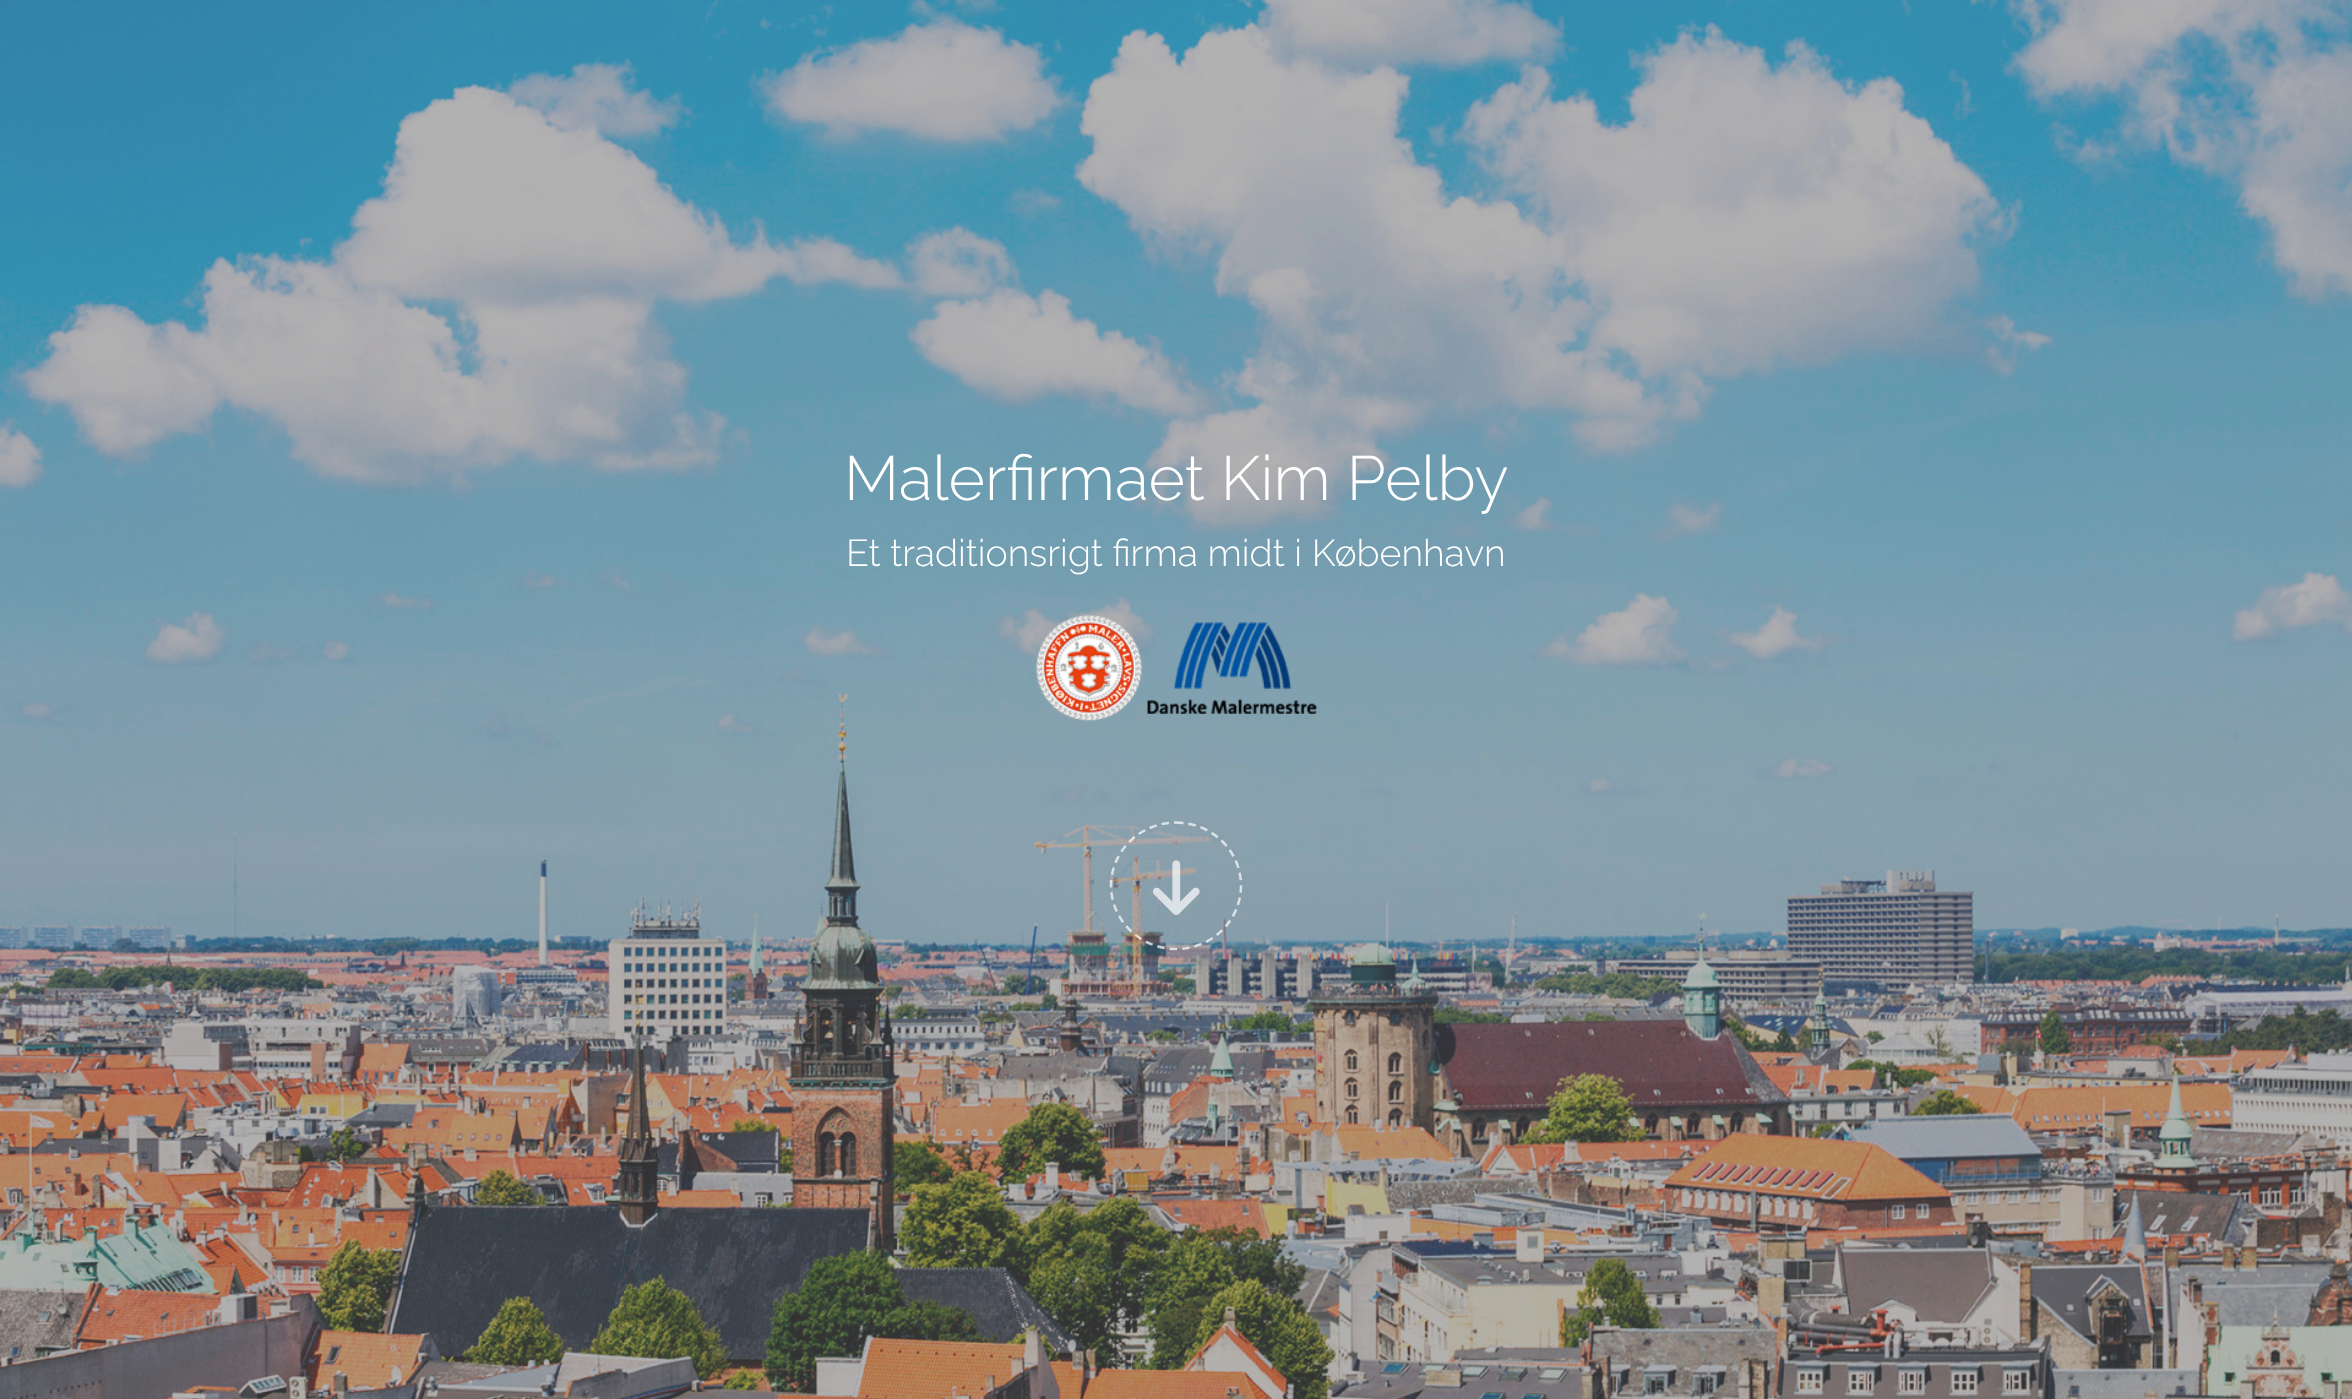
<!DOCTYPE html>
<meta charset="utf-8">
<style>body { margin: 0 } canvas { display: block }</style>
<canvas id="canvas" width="2352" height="1399"></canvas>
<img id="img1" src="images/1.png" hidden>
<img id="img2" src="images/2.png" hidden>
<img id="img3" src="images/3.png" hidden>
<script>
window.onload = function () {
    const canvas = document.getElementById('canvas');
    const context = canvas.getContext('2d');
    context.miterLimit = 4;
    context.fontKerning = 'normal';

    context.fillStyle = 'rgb(255, 255, 255)';
    context.fillRect(0, 0, 2352, 1399);
    context.drawImage(document.getElementById('img1'), 0, 0, 2352, 1399);
    context.drawImage(document.getElementById('img2'), 1035, 614, 282, 108);
    context.beginPath();
    context.moveTo(1176, 822.5);
    context.bezierCurveTo(1212, 822.5, 1241, 851, 1241, 885.5);
    context.bezierCurveTo(1241, 920.5, 1212, 949, 1176, 949);
    context.bezierCurveTo(1140.5, 949, 1111, 920.5, 1111, 885.5);
    context.bezierCurveTo(1111, 851, 1140.5, 822.5, 1176, 822.5);
    context.closePath();
    context.strokeStyle = 'rgba(255, 255, 255, 0.7)';
    context.lineWidth = 2.5;
    context.setLineDash([7.5, 5]);
    context.stroke();
    context.drawImage(document.getElementById('img3'), 1152, 860, 48, 55);
    context.font = '300 62.5px Raleway';
    context.fillText('Malerfirmaet Kim Pelby', 844, 500);
    context.font = '300 37.5px Raleway';
    context.fillText('Et traditionsrigt firma midt i København', 846, 566);
};
</script>
